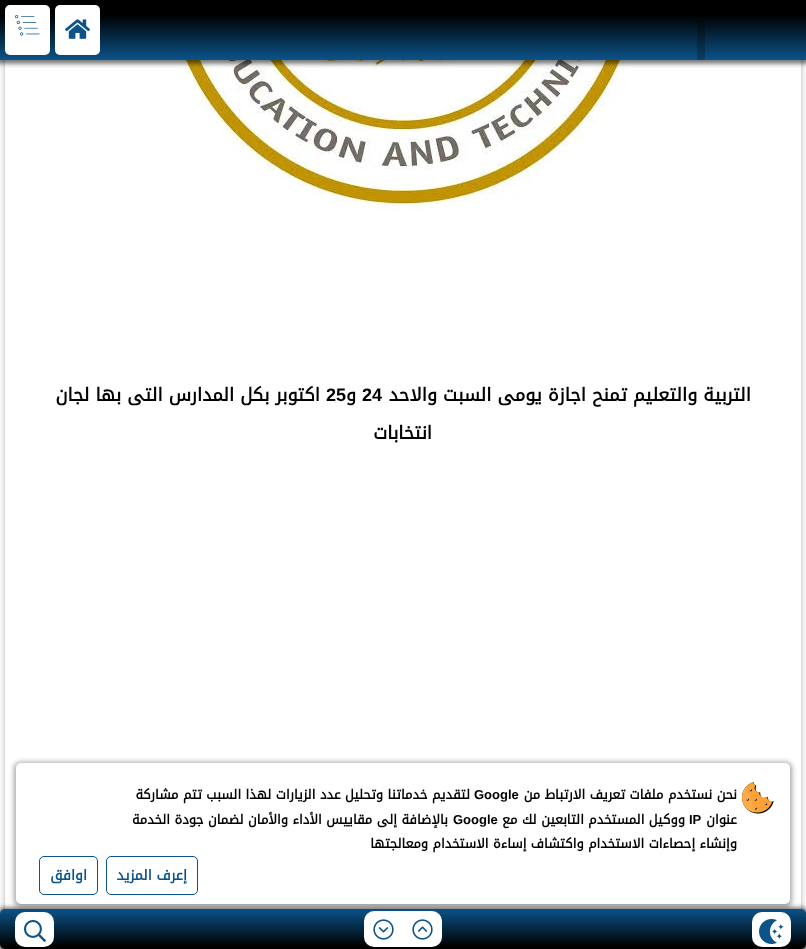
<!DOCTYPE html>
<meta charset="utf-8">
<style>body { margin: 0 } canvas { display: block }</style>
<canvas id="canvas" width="806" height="949"></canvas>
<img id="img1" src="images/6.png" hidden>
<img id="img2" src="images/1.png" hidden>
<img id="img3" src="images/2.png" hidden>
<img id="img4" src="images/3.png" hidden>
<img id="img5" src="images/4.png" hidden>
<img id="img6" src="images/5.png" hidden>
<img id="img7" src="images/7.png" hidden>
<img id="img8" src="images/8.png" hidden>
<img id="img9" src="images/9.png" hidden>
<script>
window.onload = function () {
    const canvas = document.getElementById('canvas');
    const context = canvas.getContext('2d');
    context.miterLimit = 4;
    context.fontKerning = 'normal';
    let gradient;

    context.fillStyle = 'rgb(247, 247, 247)';
    context.fillRect(0, 0, 806, 949);
    context.fillStyle = 'rgba(0, 0, 0, 0.27)';
    context.filter = 'blur(2px)';
    context.beginPath();
    context.roundRect(5, -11, 796, 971, 5);
    context.fill();
    context.filter = 'none';
    context.fillStyle = 'rgb(255, 255, 255)';
    context.fillRect(5, 60, 796, 849);
    context.drawImage(document.getElementById('img1'), 161, 60, 481, 150);
    context.fillStyle = 'rgba(0, 0, 0, 0.12)';
    context.filter = 'blur(1.5px)';
    context.beginPath();
    context.rect(0, 1, 806, 60);
    context.fill();
    context.filter = 'none';
    context.fillStyle = 'rgba(0, 0, 0, 0.48)';
    context.filter = 'blur(2px)';
    context.beginPath();
    context.rect(-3, -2, 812, 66);
    context.fill();
    context.filter = 'none';
    gradient = context.createLinearGradient(403, 0, 403, 60);
    gradient.addColorStop(0.25, 'rgb(0, 0, 0)');
    gradient.addColorStop(1, 'rgb(11, 83, 137)');
    context.fillStyle = gradient;
    context.fillRect(0, 0, 806, 60);
    context.fillStyle = 'rgb(255, 255, 255)';
    context.beginPath();
    context.roundRect(55, 5, 45, 50, 5);
    context.fill();
    context.drawImage(document.getElementById('img2'), 65, 19, 25, 20);
    context.beginPath();
    context.roundRect(5, 5, 45, 50, 5);
    context.fill();
    context.drawImage(document.getElementById('img3'), 15, 15, 25, 21);
    context.fillStyle = 'rgba(0, 0, 0, 0.12)';
    context.filter = 'blur(1.5px)';
    context.beginPath();
    context.roundRect(0, 910, 806, 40, 5);
    context.fill();
    context.filter = 'none';
    context.fillStyle = 'rgba(0, 0, 0, 0.48)';
    context.filter = 'blur(2px)';
    context.beginPath();
    context.roundRect(-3, 907, 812, 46, 8);
    context.fill();
    context.filter = 'none';
    gradient = context.createLinearGradient(403, 949, 403, 909);
    gradient.addColorStop(0.06, 'rgb(0, 0, 0)');
    gradient.addColorStop(1, 'rgb(11, 83, 137)');
    context.fillStyle = gradient;
    context.beginPath();
    context.roundRect(0, 909, 806, 40, 5);
    context.fill();
    context.fillStyle = 'rgb(255, 255, 255)';
    context.beginPath();
    context.roundRect(403, 911, 39, 36, [0, 10, 10, 0]);
    context.fill();
    context.beginPath();
    context.roundRect(364, 911, 39, 36, [10, 0, 0, 10]);
    context.fill();
    context.fillStyle = 'rgba(0, 0, 0, 0.24)';
    context.filter = 'blur(2px)';
    context.beginPath();
    context.roundRect(13, 761, 780, 147, 8);
    context.fill();
    context.filter = 'none';
    context.fillStyle = 'rgb(255, 255, 255)';
    context.beginPath();
    context.roundRect(752, 912, 39, 35, 10);
    context.fill();
    context.drawImage(document.getElementById('img4'), 759, 919, 25, 25);
    context.beginPath();
    context.roundRect(15, 912, 39, 35, 10);
    context.fill();
    context.drawImage(document.getElementById('img5'), 24, 920, 22, 22);
    context.drawImage(document.getElementById('img6'), 697, 19, 8, 41);
    context.drawImage(document.getElementById('img7'), 412, 919, 21, 21);
    context.drawImage(document.getElementById('img8'), 373, 919, 21, 21);
    context.fillStyle = 'rgba(0, 0, 0, 0.12)';
    context.filter = 'blur(1.5px)';
    context.beginPath();
    context.roundRect(16, 764, 774, 141, 5);
    context.fill();
    context.filter = 'none';
    context.fillStyle = 'rgb(255, 255, 255)';
    context.beginPath();
    context.roundRect(16, 763, 774, 141, 5);
    context.fill();
    context.drawImage(document.getElementById('img9'), 742, 782, 32, 32);
    context.beginPath();
    context.roundRect(106.5, 856.5, 91, 38, 4.5);
    context.strokeStyle = 'rgb(11, 83, 137)';
    context.stroke();
    context.beginPath();
    context.roundRect(39.5, 856.5, 58, 38, 4.5);
    context.stroke();
    context.direction = 'rtl';
    context.font = 'bold 18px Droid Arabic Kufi';
    context.fillStyle = 'rgb(0, 0, 0)';
    context.fillText('التربية والتعليم تمنح اجازة يومى السبت والاحد', 751, 401);
    context.direction = 'ltr';
    context.font = 'bold 18px Liberation Sans';
    context.fillText('24', 362, 401);
    context.direction = 'rtl';
    context.font = 'bold 18px Droid Arabic Kufi';
    context.fillText('و', 356, 401);
    context.direction = 'ltr';
    context.font = 'bold 18px Liberation Sans';
    context.fillText('25', 326, 401);
    context.direction = 'rtl';
    context.font = 'bold 18px Droid Arabic Kufi';
    context.fillText('اكتوبر بكل المدارس التى بها لجان', 320, 401);
    context.fillText('انتخابات', 432, 439);
    context.font = 'bold 13px Droid Arabic Kufi';
    context.fillText('نحن نستخدم ملفات تعريف الارتباط من', 737, 799);
    context.direction = 'ltr';
    context.font = 'bold 13px Liberation Sans';
    context.fillText('Google', 474, 799);
    context.direction = 'rtl';
    context.font = 'bold 13px Droid Arabic Kufi';
    context.fillText('لتقديم خدماتنا وتحليل عدد الزيارات لهذا السبب تتم مشاركة', 470, 799);
    context.fillText('عنوان', 737, 824);
    context.direction = 'ltr';
    context.font = 'bold 13px Liberation Sans';
    context.fillText('IP', 689, 824);
    context.direction = 'rtl';
    context.font = 'bold 13px Droid Arabic Kufi';
    context.fillText('ووكيل المستخدم التابعين لك مع', 685, 824);
    context.direction = 'ltr';
    context.font = 'bold 13px Liberation Sans';
    context.fillText('Google', 453, 824);
    context.direction = 'rtl';
    context.font = 'bold 13px Droid Arabic Kufi';
    context.fillText('بالإضافة إلى مقاييس الأداء والأمان لضمان جودة الخدمة', 448, 824);
    context.fillText('وإنشاء إحصاءات الاستخدام واكتشاف إساءة الاستخدام ومعالجتها', 737, 848);
    context.font = 'bold 14px Droid Arabic Kufi';
    context.fillStyle = 'rgb(11, 83, 137)';
    context.fillText('إعرف المزيد', 187, 880);
    context.fillText('اوافق', 87, 880);
};
</script>
